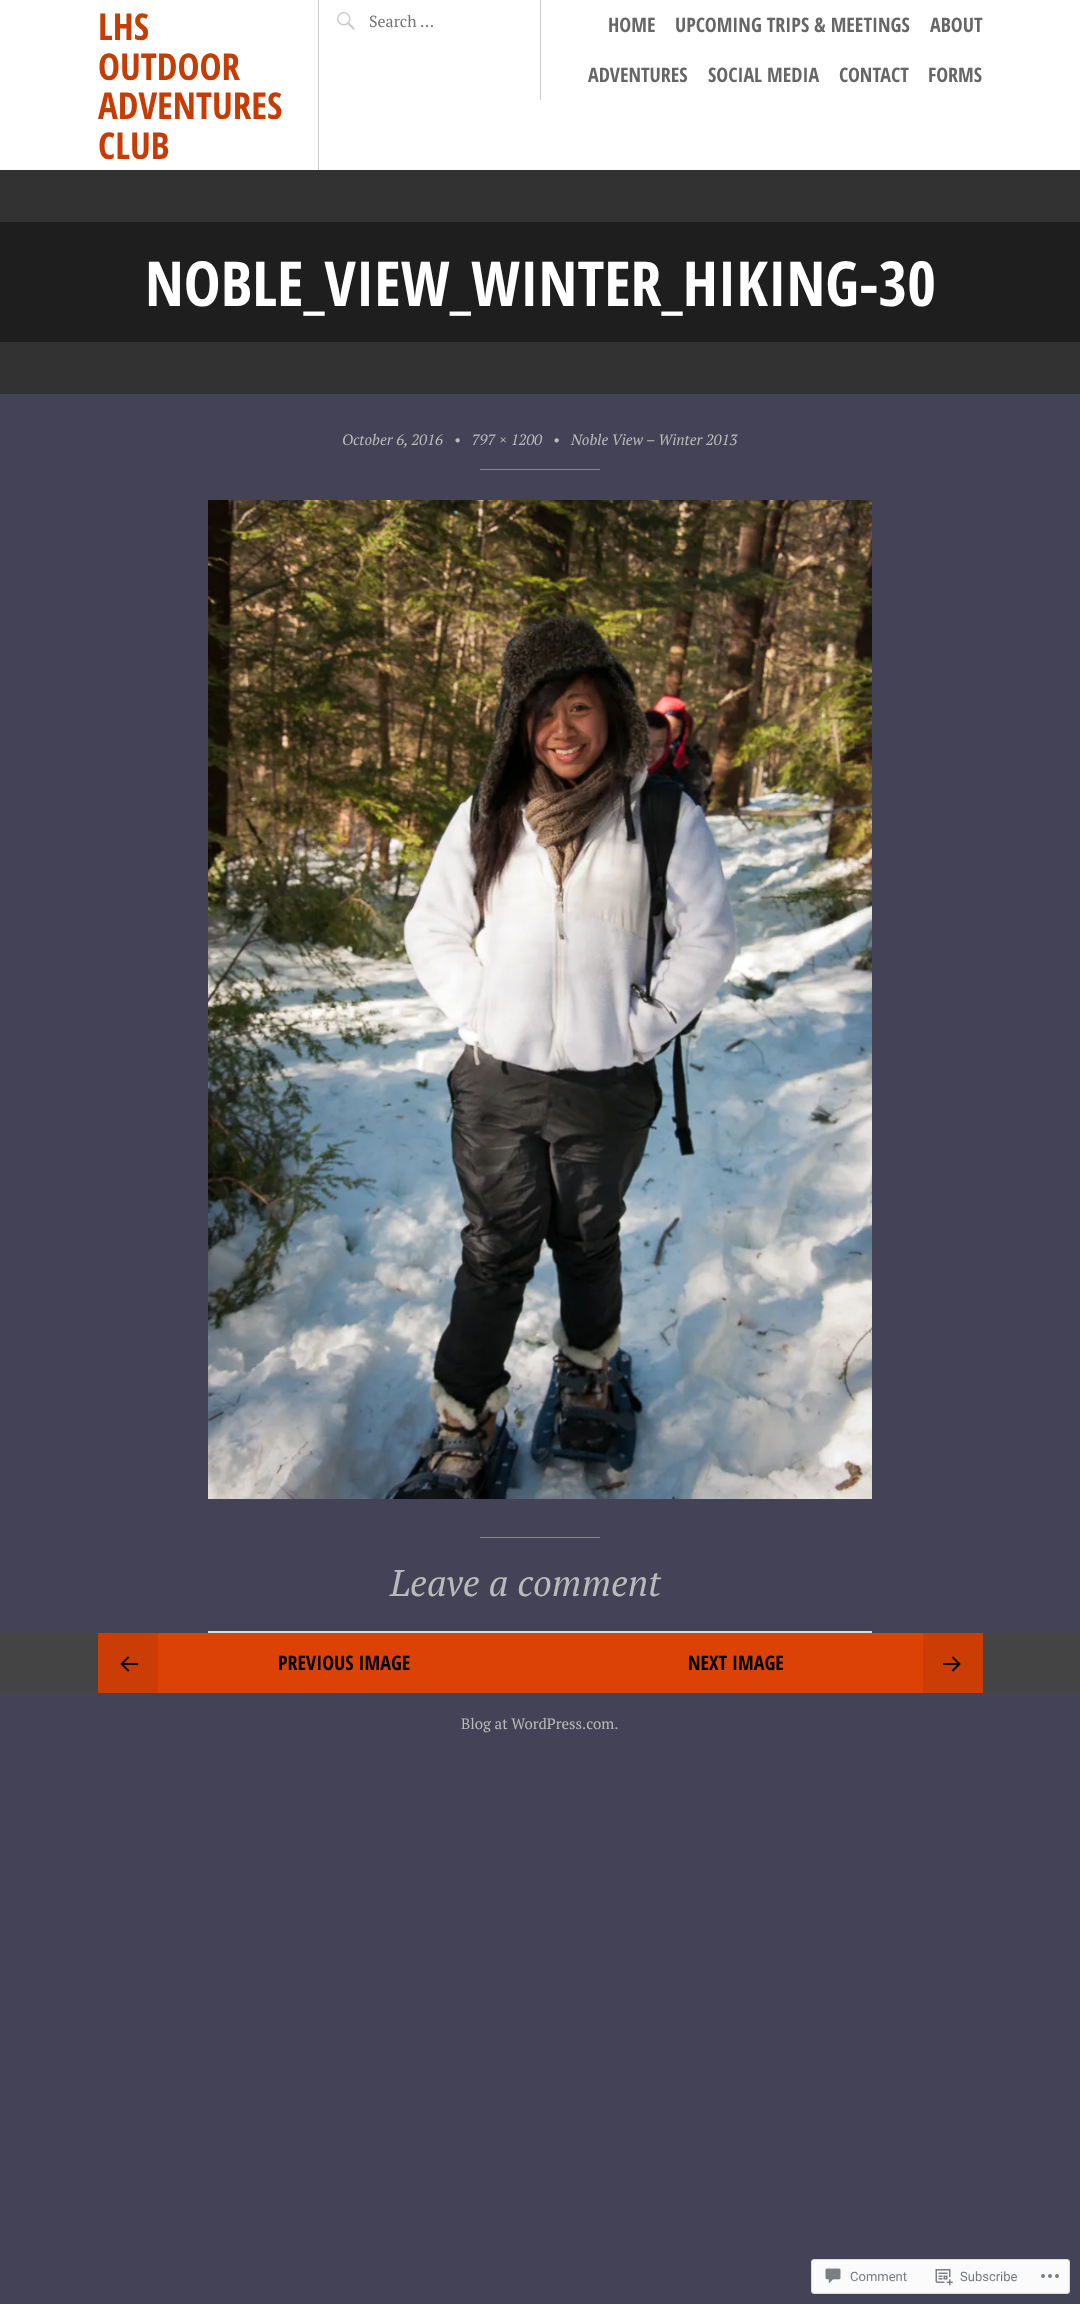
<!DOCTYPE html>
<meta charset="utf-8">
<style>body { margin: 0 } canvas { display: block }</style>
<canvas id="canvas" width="1080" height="2304"></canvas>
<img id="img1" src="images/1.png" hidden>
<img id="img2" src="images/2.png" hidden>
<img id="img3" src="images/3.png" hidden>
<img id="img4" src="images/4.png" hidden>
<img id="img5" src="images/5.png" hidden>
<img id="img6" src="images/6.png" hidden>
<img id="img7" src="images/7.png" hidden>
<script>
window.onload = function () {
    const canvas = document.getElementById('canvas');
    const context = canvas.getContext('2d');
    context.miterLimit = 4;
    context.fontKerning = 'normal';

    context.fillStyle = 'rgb(68, 66, 86)';
    context.fillRect(0, 0, 1080, 2304);
    context.fillStyle = 'rgb(255, 255, 255)';
    context.fillRect(0, 0, 1080, 170);
    context.fillStyle = 'rgb(204, 204, 204)';
    context.fillRect(318, 0, 1, 170);
    context.drawImage(document.getElementById('img1'), 337, 12, 18, 18);
    context.fillRect(540, 0, 1, 100);
    context.fillStyle = 'rgb(30, 30, 30)';
    context.fillRect(0, 222, 1080, 120);
    context.fillStyle = 'rgb(50, 50, 50)';
    context.fillRect(0, 170, 1080, 52);
    context.fillRect(0, 342, 1080, 52);
    context.fillStyle = 'rgb(136, 135, 145)';
    context.fillRect(480, 469, 120, 1);
    context.drawImage(document.getElementById('img2'), 208, 500, 664, 999);
    context.fillRect(480, 1537, 120, 1);
    context.fillStyle = 'rgb(220, 220, 222)';
    context.fillRect(208, 1631, 664, 2);
    context.fillStyle = 'rgb(68, 68, 68)';
    context.fillRect(0, 1633, 1080, 60);
    context.fillStyle = 'rgb(220, 66, 6)';
    context.fillRect(158, 1633, 765, 60);
    context.fillStyle = 'rgb(203, 61, 5)';
    context.fillRect(98, 1633, 60, 60);
    context.drawImage(document.getElementById('img3'), 120, 1656, 18, 16);
    context.fillRect(923, 1633, 60, 60);
    context.drawImage(document.getElementById('img4'), 943, 1656, 18, 16);
    context.fillStyle = 'rgb(251, 251, 252)';
    context.beginPath();
    context.roundRect(811.5, 2259.5, 258, 34, 2.5);
    context.fill();
    context.strokeStyle = 'rgb(217, 217, 219)';
    context.stroke();
    context.drawImage(document.getElementById('img5'), 825, 2268, 16, 16);
    context.drawImage(document.getElementById('img6'), 935, 2269, 18, 17);
    context.drawImage(document.getElementById('img7'), 1041, 2274, 18, 4);
    context.font = 'bold 37px Open Sans Condensed';
    context.fillStyle = 'rgb(198, 60, 5)';
    context.fillText('LHS', 98, 40);
    context.fillText('OUTDOOR', 98, 80);
    context.fillText('ADVENTURES', 98, 119);
    context.fillText('CLUB', 98, 159);
    context.font = '16px PT Serif';
    context.fillStyle = 'rgb(117, 117, 117)';
    context.fillText('Search …', 369, 27);
    context.font = 'bold 20px Open Sans Condensed';
    context.fillStyle = 'rgb(102, 102, 102)';
    context.fillText('HOME', 608, 32);
    context.fillText('UPCOMING TRIPS & MEETINGS', 675, 32);
    context.fillText('ABOUT', 930, 32);
    context.fillText('ADVENTURES', 588, 82);
    context.fillText('SOCIAL MEDIA', 708, 82);
    context.fillText('CONTACT', 839, 82);
    context.fillText('FORMS', 928, 82);
    context.font = 'bold 62px Open Sans Condensed';
    context.fillStyle = 'rgb(255, 255, 255)';
    context.fillText('NOBLE_VIEW_WINTER_HIKING-30', 145, 306);
    context.font = 'italic 15px PT Serif';
    context.fillStyle = 'rgb(186, 186, 186)';
    context.fillText('October 6, 2016', 342, 445);
    context.fillText('•', 454, 445);
    context.fillText('797 × 1200', 472, 445);
    context.fillText('•', 553, 445);
    context.fillText('Noble View – Winter 2013', 571, 445);
    context.font = 'italic 37px PT Serif';
    context.fillText('Leave a comment', 390, 1596);
    context.font = 'bold 20px Open Sans Condensed';
    context.fillStyle = 'rgb(0, 0, 0)';
    context.fillText('PREVIOUS IMAGE', 278, 1670);
    context.fillText('NEXT IMAGE', 688, 1670);
    context.font = '15px PT Serif';
    context.fillStyle = 'rgb(186, 186, 186)';
    context.fillText('Blog at WordPress.com.', 461, 1729);
    context.font = '13px Roboto';
    context.fillStyle = 'rgb(119, 123, 129)';
    context.fillText('Comment', 850, 2281);
    context.fillText('Subscribe', 960, 2281);
};
</script>
